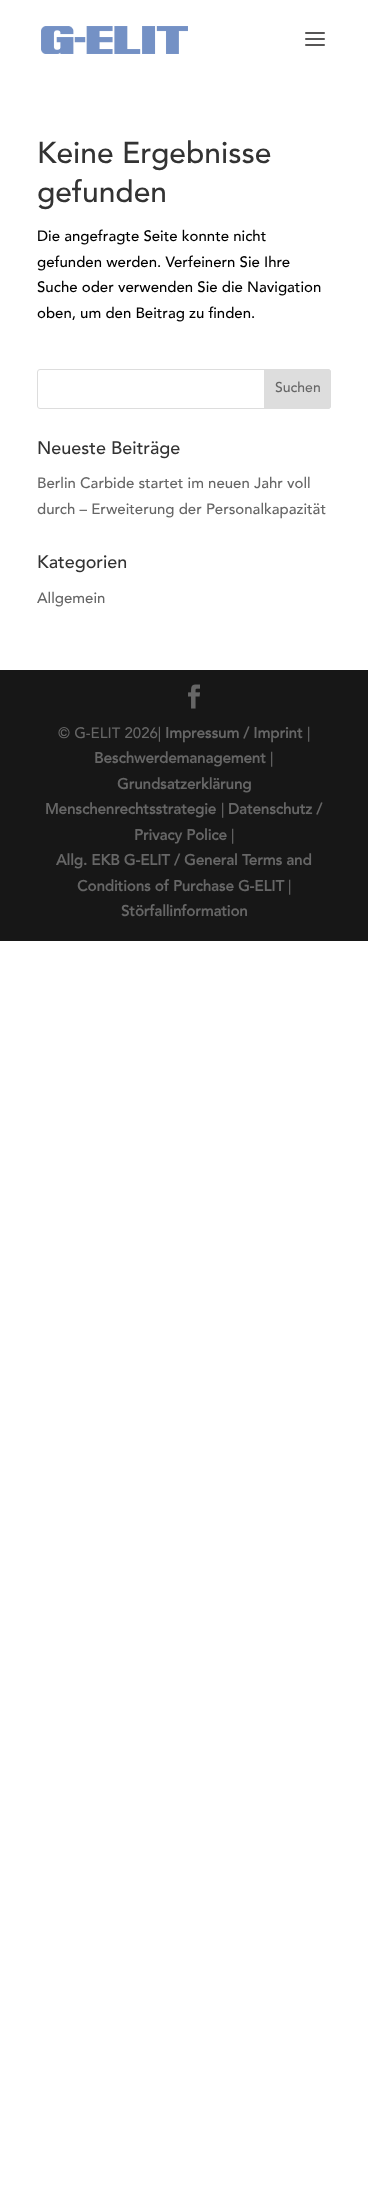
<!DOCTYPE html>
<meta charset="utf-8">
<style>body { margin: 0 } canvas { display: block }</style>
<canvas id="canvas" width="368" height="2209"></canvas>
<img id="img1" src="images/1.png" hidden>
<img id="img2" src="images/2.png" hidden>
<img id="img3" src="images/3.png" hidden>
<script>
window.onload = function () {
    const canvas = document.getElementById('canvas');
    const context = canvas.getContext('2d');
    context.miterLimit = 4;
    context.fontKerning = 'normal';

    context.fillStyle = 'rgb(255, 255, 255)';
    context.fillRect(0, 0, 368, 2209);
    context.drawImage(document.getElementById('img1'), 41, 26, 147, 28);
    context.drawImage(document.getElementById('img2'), 305, 32, 20, 14);
    context.beginPath();
    context.roundRect(37.5, 369.5, 293, 39, 2.5);
    context.strokeStyle = 'rgb(221, 221, 221)';
    context.stroke();
    context.fillStyle = 'rgb(221, 221, 221)';
    context.beginPath();
    context.roundRect(264.5, 369.5, 66, 39, [0, 2.5, 2.5, 0]);
    context.fill();
    context.stroke();
    context.fillStyle = 'rgb(23, 23, 23)';
    context.fillRect(0, 670, 368, 271);
    context.drawImage(document.getElementById('img3'), 188, 684, 12, 25);
    context.font = '30px Avenir';
    context.fillStyle = 'rgb(51, 51, 51)';
    context.fillText('Keine Ergebnisse', 37, 163);
    context.fillText('gefunden', 37, 202);
    context.font = '15px Avenir';
    context.fillStyle = 'rgb(0, 0, 0)';
    context.fillText('Die angefragte Seite konnte nicht', 37, 241);
    context.fillText('gefunden werden. Verfeinern Sie Ihre', 37, 267);
    context.fillText('Suche oder verwenden Sie die Navigation', 37, 292);
    context.fillText('oben, um den Beitrag zu finden.', 37, 318);
    context.font = '14px Avenir';
    context.fillStyle = 'rgb(102, 102, 102)';
    context.fillText('Suchen', 275, 392);
    context.font = '18px Avenir';
    context.fillStyle = 'rgb(51, 51, 51)';
    context.fillText('Neueste Beiträge', 37, 454);
    context.font = '15px Avenir';
    context.fillStyle = 'rgb(102, 102, 102)';
    context.fillText('Berlin Carbide startet im neuen Jahr voll', 37, 488);
    context.fillText('durch – Erweiterung der Personalkapazität', 37, 514);
    context.font = '18px Avenir';
    context.fillStyle = 'rgb(51, 51, 51)';
    context.fillText('Kategorien', 37, 568);
    context.font = '15px Avenir';
    context.fillStyle = 'rgb(102, 102, 102)';
    context.fillText('Allgemein', 37, 603);
    context.fillText('© G-ELIT 2026|', 58, 738);
    context.font = 'bold 15px Avenir';
    context.fillText('Impressum / Imprint', 165, 738);
    context.font = '15px Avenir';
    context.fillText('|', 307, 738);
    context.font = 'bold 15px Avenir';
    context.fillText('Beschwerdemanagement', 94, 763);
    context.font = '15px Avenir';
    context.fillText('|', 270, 763);
    context.font = 'bold 15px Avenir';
    context.fillText('Grundsatzerklärung', 117, 789);
    context.fillText('Menschenrechtsstrategie', 45, 814);
    context.font = '15px Avenir';
    context.fillText('|', 221, 814);
    context.font = 'bold 15px Avenir';
    context.fillText('Datenschutz /', 228, 814);
    context.fillText('Privacy Police', 134, 840);
    context.font = '15px Avenir';
    context.fillText('|', 231, 840);
    context.font = 'bold 15px Avenir';
    context.fillText('Allg. EKB G-ELIT / General Terms and', 56, 865);
    context.fillText('Conditions of Purchase G-ELIT', 77, 891);
    context.font = '15px Avenir';
    context.fillText('|', 288, 891);
    context.font = 'bold 15px Avenir';
    context.fillText('Störfallinformation', 121, 916);
};
</script>
